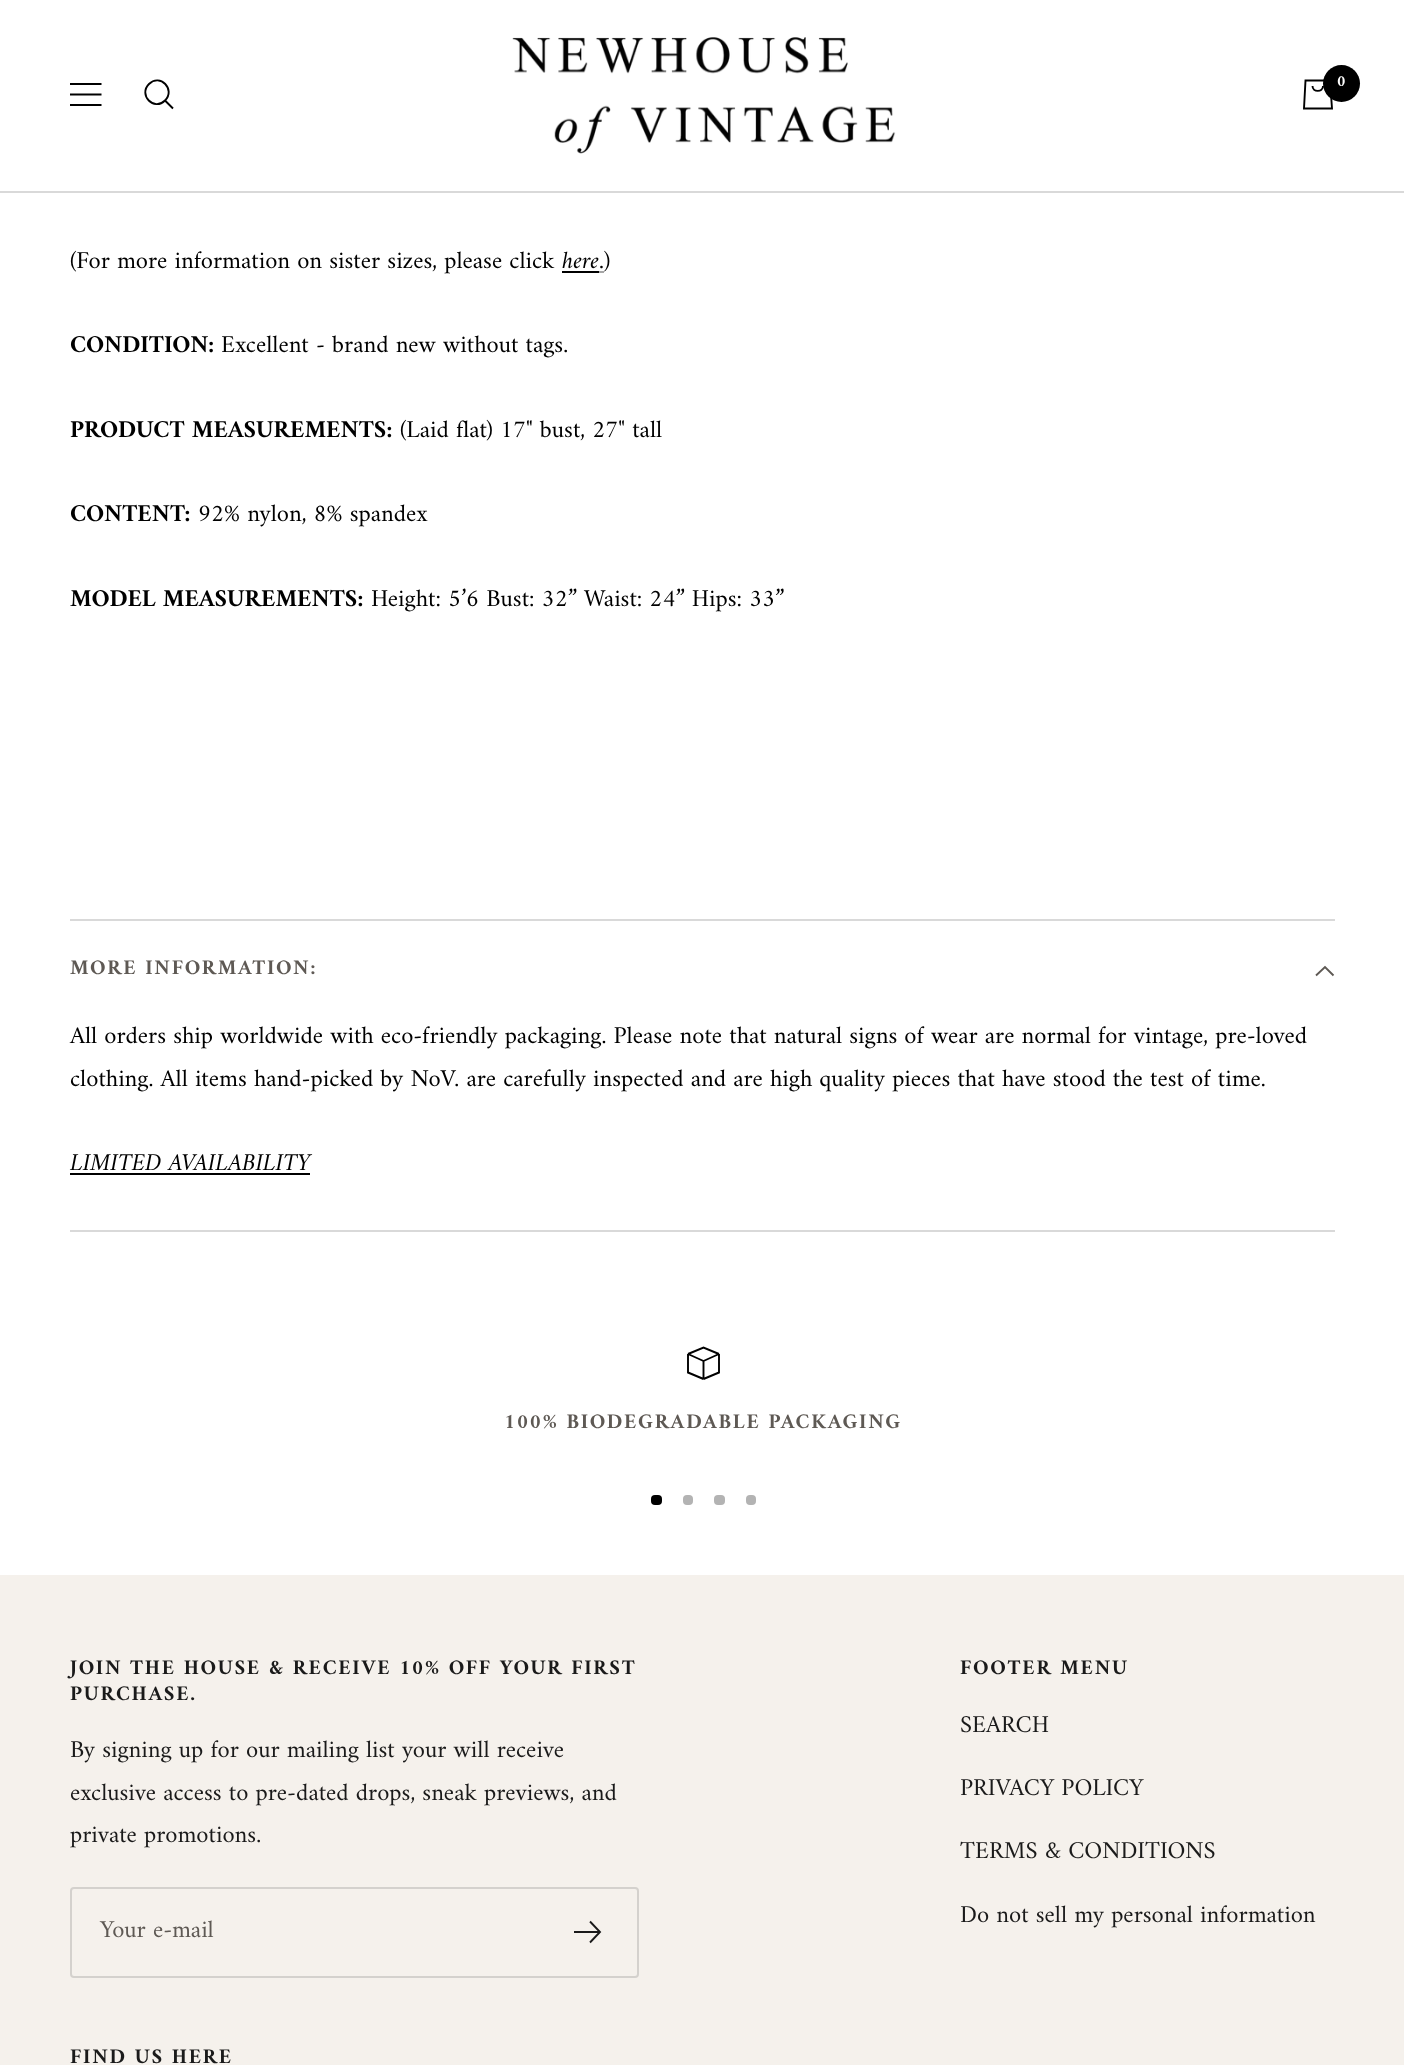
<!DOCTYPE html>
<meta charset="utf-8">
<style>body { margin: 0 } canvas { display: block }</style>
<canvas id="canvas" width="1404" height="2065"></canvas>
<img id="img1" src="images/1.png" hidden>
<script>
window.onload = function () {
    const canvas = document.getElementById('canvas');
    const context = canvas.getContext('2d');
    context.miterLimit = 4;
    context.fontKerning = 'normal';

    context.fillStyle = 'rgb(255, 255, 255)';
    context.fillRect(0, 0, 1404, 2065);
    context.fillStyle = 'rgb(217, 217, 217)';
    context.fillRect(0, 191, 1404, 2);
    context.beginPath();
    context.moveTo(70, 84);
    context.lineTo(101.5, 84);
    context.moveTo(70, 105);
    context.lineTo(101.5, 105);
    context.closePath();
    context.moveTo(70, 94.5);
    context.lineTo(101.5, 94.5);
    context.closePath();
    context.strokeStyle = 'rgb(0, 0, 0)';
    context.lineWidth = 1.9;
    context.stroke();
    context.beginPath();
    context.moveTo(165, 100.5);
    context.bezierCurveTo(176, 89.5, 160, 73, 149, 84);
    context.bezierCurveTo(138, 95, 154, 111.5, 165, 100.5);
    context.closePath();
    context.moveTo(165, 100.5);
    context.lineTo(173, 108.5);
    context.stroke();
    context.drawImage(document.getElementById('img1'), 512, 37, 384, 117);
    context.beginPath();
    context.moveTo(1305.5, 80.5);
    context.lineTo(1330, 80.5);
    context.lineTo(1332, 108.5);
    context.lineTo(1304, 108.5);
    context.closePath();
    context.moveTo(1312.5, 86);
    context.bezierCurveTo(1312.5, 92.5, 1323, 92.5, 1323, 86);
    context.stroke();
    context.fillStyle = 'rgb(0, 0, 0)';
    context.beginPath();
    context.arc(1341.5, 83.5, 18.5, 0, 2 * Math.PI);
    context.fill();
    context.fillRect(562, 271, 37, 2);
    context.fillStyle = 'rgb(166, 166, 166)';
    context.fillRect(599, 271, 5, 2);
    context.fillStyle = 'rgb(217, 217, 217)';
    context.fillRect(70, 919, 1265, 2);
    context.fillRect(70, 1230, 1265, 2);
    context.beginPath();
    context.moveTo(1333.5, 975.5);
    context.lineTo(1325, 967);
    context.lineTo(1316, 975.5);
    context.strokeStyle = 'rgb(94, 89, 84)';
    context.stroke();
    context.fillStyle = 'rgb(0, 0, 0)';
    context.fillRect(70, 1173, 240, 2);
    context.beginPath();
    context.moveTo(703.5, 1379);
    context.lineTo(719, 1372.5);
    context.lineTo(719, 1354);
    context.moveTo(703.5, 1379);
    context.lineTo(688, 1372.5);
    context.lineTo(688, 1354);
    context.moveTo(703.5, 1379);
    context.lineTo(703.5, 1361);
    context.moveTo(719, 1354);
    context.lineTo(703.5, 1347.5);
    context.lineTo(688, 1354);
    context.moveTo(719, 1354);
    context.lineTo(703.5, 1361);
    context.moveTo(688, 1354);
    context.lineTo(703.5, 1361);
    context.strokeStyle = 'rgb(0, 0, 0)';
    context.stroke();
    context.beginPath();
    context.roundRect(651, 1495, 11, 10, 4);
    context.fill();
    context.fillStyle = 'rgb(179, 179, 179)';
    context.beginPath();
    context.roundRect(683, 1495, 10, 10, 4);
    context.fill();
    context.beginPath();
    context.roundRect(714, 1495, 11, 10, 4);
    context.fill();
    context.beginPath();
    context.roundRect(746, 1495, 10, 10, 4);
    context.fill();
    context.fillStyle = 'rgb(245, 241, 236)';
    context.fillRect(0, 1575, 1404, 490);
    context.beginPath();
    context.roundRect(71, 1888, 567, 89, 3);
    context.strokeStyle = 'rgb(212, 209, 205)';
    context.lineWidth = 2;
    context.stroke();
    context.beginPath();
    context.moveTo(574, 1932);
    context.lineTo(600, 1932);
    context.moveTo(590, 1921.5);
    context.lineTo(600, 1932);
    context.lineTo(590, 1942.5);
    context.strokeStyle = 'rgb(26, 26, 26)';
    context.lineWidth = 1.9;
    context.stroke();
    context.font = 'bold 16px Amiri';
    context.fillStyle = 'rgb(255, 255, 255)';
    context.fillText('0', 1337, 86);
    context.font = '24.5px Amiri';
    context.fillStyle = 'rgb(0, 0, 0)';
    context.fillText('(For more information on sister sizes, please click', 70, 268);
    context.font = 'italic 24.5px Amiri';
    context.fillText('here', 562, 268);
    context.font = '24.5px Amiri';
    context.fillText('.', 599, 268);
    context.fillText(')', 604, 268);
    context.font = 'bold 24.5px Amiri';
    context.fillText('CONDITION:', 70, 352);
    context.font = '24.5px Amiri';
    context.fillText('Excellent - brand new without tags.', 221, 352);
    context.font = 'bold 24.5px Amiri';
    context.fillText('PRODUCT MEASUREMENTS:', 70, 437);
    context.font = '24.5px Amiri';
    context.fillText('(Laid flat) 17" bust, 27" tall', 400, 437);
    context.font = 'bold 24.5px Amiri';
    context.fillText('CONTENT:', 70, 521);
    context.font = '24.5px Amiri';
    context.fillText('92% nylon, 8% spandex', 198, 521);
    context.font = 'bold 24.5px Amiri';
    context.fillText('MODEL MEASUREMENTS:', 70, 606);
    context.font = '24.5px Amiri';
    context.fillText('Height: 5’6 Bust: 32” Waist: 24” Hips: 33”', 371, 606);
    context.letterSpacing = '1.75px';
    context.font = 'bold 21px Amiri';
    context.fillStyle = 'rgb(94, 89, 84)';
    context.fillText('MORE INFORMATION:', 70, 974);
    context.letterSpacing = '0px';
    context.font = '24.5px Amiri';
    context.fillStyle = 'rgb(0, 0, 0)';
    context.fillText('All orders ship worldwide with eco-friendly packaging. Please note that natural signs of wear are normal for vintage, pre-loved', 70, 1043);
    context.fillText('clothing. All items hand-picked by NoV. are carefully inspected and are high quality pieces that have stood the test of time.', 70, 1086);
    context.font = 'italic 24.5px Amiri';
    context.fillText('LIMITED AVAILABILITY', 70, 1170);
    context.letterSpacing = '1.75px';
    context.font = 'bold 21px Amiri';
    context.fillStyle = 'rgb(94, 89, 84)';
    context.fillText('100% BIODEGRADABLE PACKAGING', 504, 1428);
    context.fillStyle = 'rgb(26, 26, 26)';
    context.fillText('JOIN THE HOUSE & RECEIVE 10% OFF YOUR FIRST', 70, 1674);
    context.fillText('PURCHASE.', 70, 1700);
    context.letterSpacing = '0px';
    context.font = '24.5px Amiri';
    context.fillText('By signing up for our mailing list your will receive', 70, 1757);
    context.fillText('exclusive access to pre-dated drops, sneak previews, and', 70, 1800);
    context.fillText('private promotions.', 70, 1842);
    context.fillStyle = 'rgb(94, 89, 84)';
    context.fillText('Your e-mail', 100, 1937);
    context.letterSpacing = '1.75px';
    context.font = 'bold 21px Amiri';
    context.fillStyle = 'rgb(26, 26, 26)';
    context.fillText('FOOTER MENU', 960, 1674);
    context.letterSpacing = '0px';
    context.font = '24.5px Amiri';
    context.fillText('SEARCH', 960, 1732);
    context.fillText('PRIVACY POLICY', 960, 1795);
    context.fillText('TERMS & CONDITIONS', 960, 1858);
    context.fillText('Do not sell my personal information', 960, 1922);
    context.letterSpacing = '1.75px';
    context.font = 'bold 21px Amiri';
    context.fillText('FIND US HERE', 70, 2063);
};
</script>
